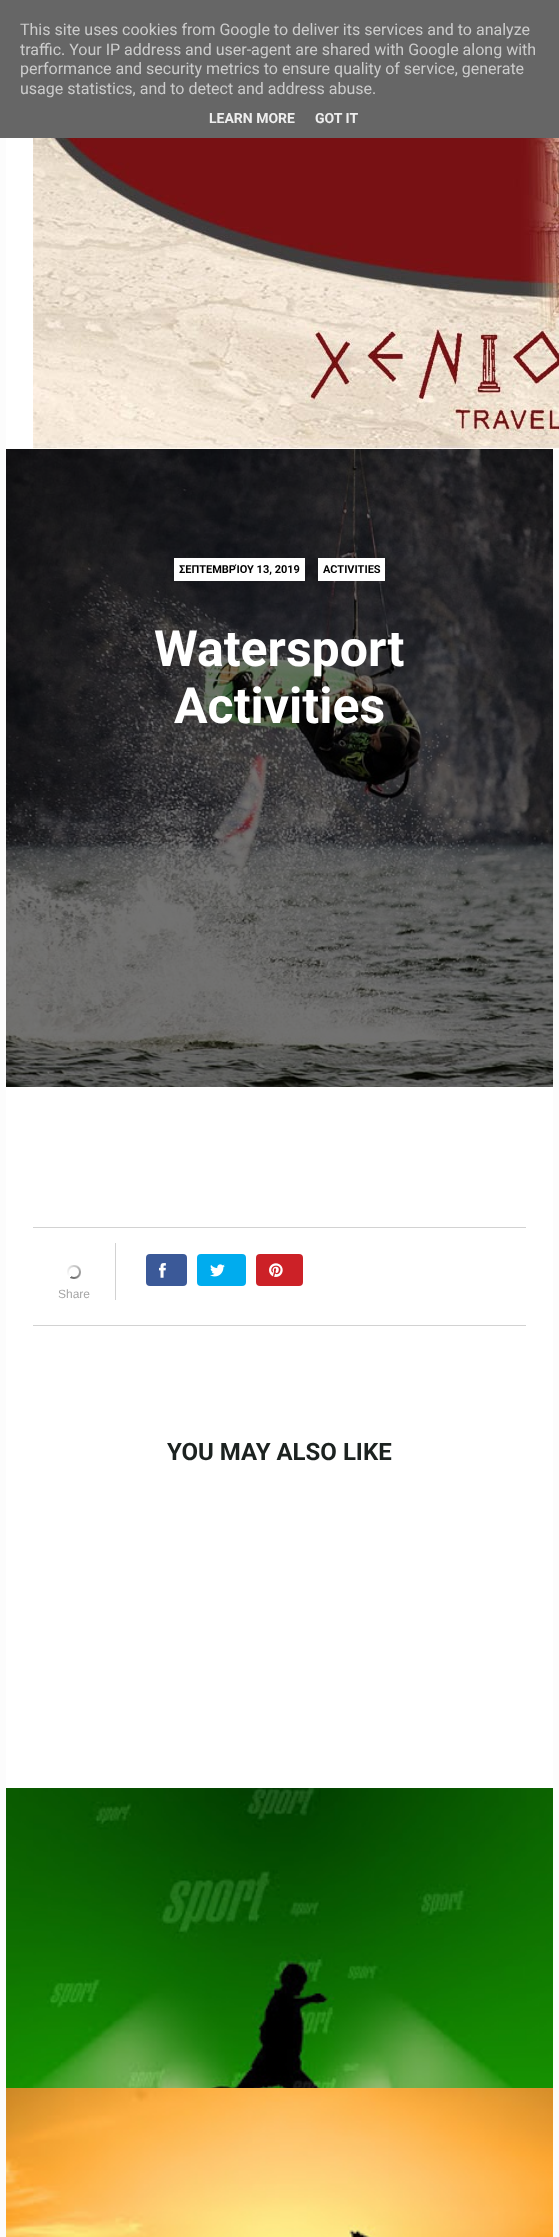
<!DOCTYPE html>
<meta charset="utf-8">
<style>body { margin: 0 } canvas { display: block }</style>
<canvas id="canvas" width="559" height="2237"></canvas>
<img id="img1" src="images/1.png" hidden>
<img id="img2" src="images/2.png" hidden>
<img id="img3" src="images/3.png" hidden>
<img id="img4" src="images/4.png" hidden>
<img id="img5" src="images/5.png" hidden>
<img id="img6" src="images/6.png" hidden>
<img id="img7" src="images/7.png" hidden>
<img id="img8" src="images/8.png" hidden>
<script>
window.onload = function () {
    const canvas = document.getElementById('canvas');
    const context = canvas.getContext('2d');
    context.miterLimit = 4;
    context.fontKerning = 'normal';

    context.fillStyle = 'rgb(252, 252, 252)';
    context.fillRect(0, 0, 559, 2237);
    context.fillStyle = 'rgb(102, 102, 102)';
    context.fillRect(0, 0, 559, 138);
    context.fillStyle = 'rgb(255, 255, 255)';
    context.fillRect(6, 138, 547, 1650);
    context.drawImage(document.getElementById('img1'), 33, 138, 526, 311);
    context.drawImage(document.getElementById('img2'), 6, 449, 547, 638);
    context.fillRect(174, 558, 131, 23);
    context.fillRect(318, 558, 67, 23);
    context.fillStyle = 'rgb(210, 210, 210)';
    context.fillRect(33, 1227, 493, 1);
    context.fillRect(33, 1325, 493, 1);
    context.fillStyle = 'rgb(59, 89, 152)';
    context.beginPath();
    context.roundRect(146, 1254, 41, 32, 4);
    context.fill();
    context.drawImage(document.getElementById('img3'), 159, 1263, 7, 15);
    context.fillStyle = 'rgb(0, 172, 238)';
    context.beginPath();
    context.roundRect(197, 1254, 49, 32, 4);
    context.fill();
    context.drawImage(document.getElementById('img4'), 210, 1264, 15, 13);
    context.fillStyle = 'rgb(204, 33, 39)';
    context.beginPath();
    context.roundRect(256, 1254, 47, 32, 4);
    context.fill();
    context.drawImage(document.getElementById('img5'), 269, 1263, 14, 14);
    context.fillStyle = 'rgb(210, 210, 210)';
    context.fillRect(115, 1243, 1, 57);
    context.drawImage(document.getElementById('img6'), 67, 1265, 14, 14);
    context.drawImage(document.getElementById('img7'), 6, 1788, 547, 300);
    context.drawImage(document.getElementById('img8'), 6, 2088, 547, 149);
    context.font = '16px Roboto';
    context.fillStyle = 'rgb(204, 204, 204)';
    context.fillText('This site uses cookies from Google to deliver its services and to analyze', 20, 35);
    context.fillText('traffic. Your IP address and user-agent are shared with Google along with', 20, 55);
    context.fillText('performance and security metrics to ensure quality of service, generate', 20, 74);
    context.fillText('usage statistics, and to detect and address abuse.', 20, 94);
    context.font = 'bold 14px Roboto';
    context.fillStyle = 'rgb(238, 238, 238)';
    context.fillText('LEARN MORE', 209, 123);
    context.fillText('GOT IT', 315, 123);
    context.font = 'bold 11px Roboto';
    context.fillStyle = 'rgb(0, 0, 0)';
    context.fillText('ΣΕΠΤΕΜΒΡΊΟΥ 13, 2019', 179, 573);
    context.fillText('ACTIVITIES', 323, 573);
    context.font = 'bold 50px Roboto';
    context.fillStyle = 'rgb(255, 255, 255)';
    context.fillText('Watersport', 154, 666);
    context.fillText('Activities', 174, 723);
    context.font = '12px Liberation Sans';
    context.fillStyle = 'rgb(166, 166, 166)';
    context.fillText('Share', 58, 1298);
    context.font = 'bold 24px Roboto';
    context.fillStyle = 'rgb(28, 34, 32)';
    context.fillText('YOU MAY ALSO LIKE', 167, 1460);
};
</script>
